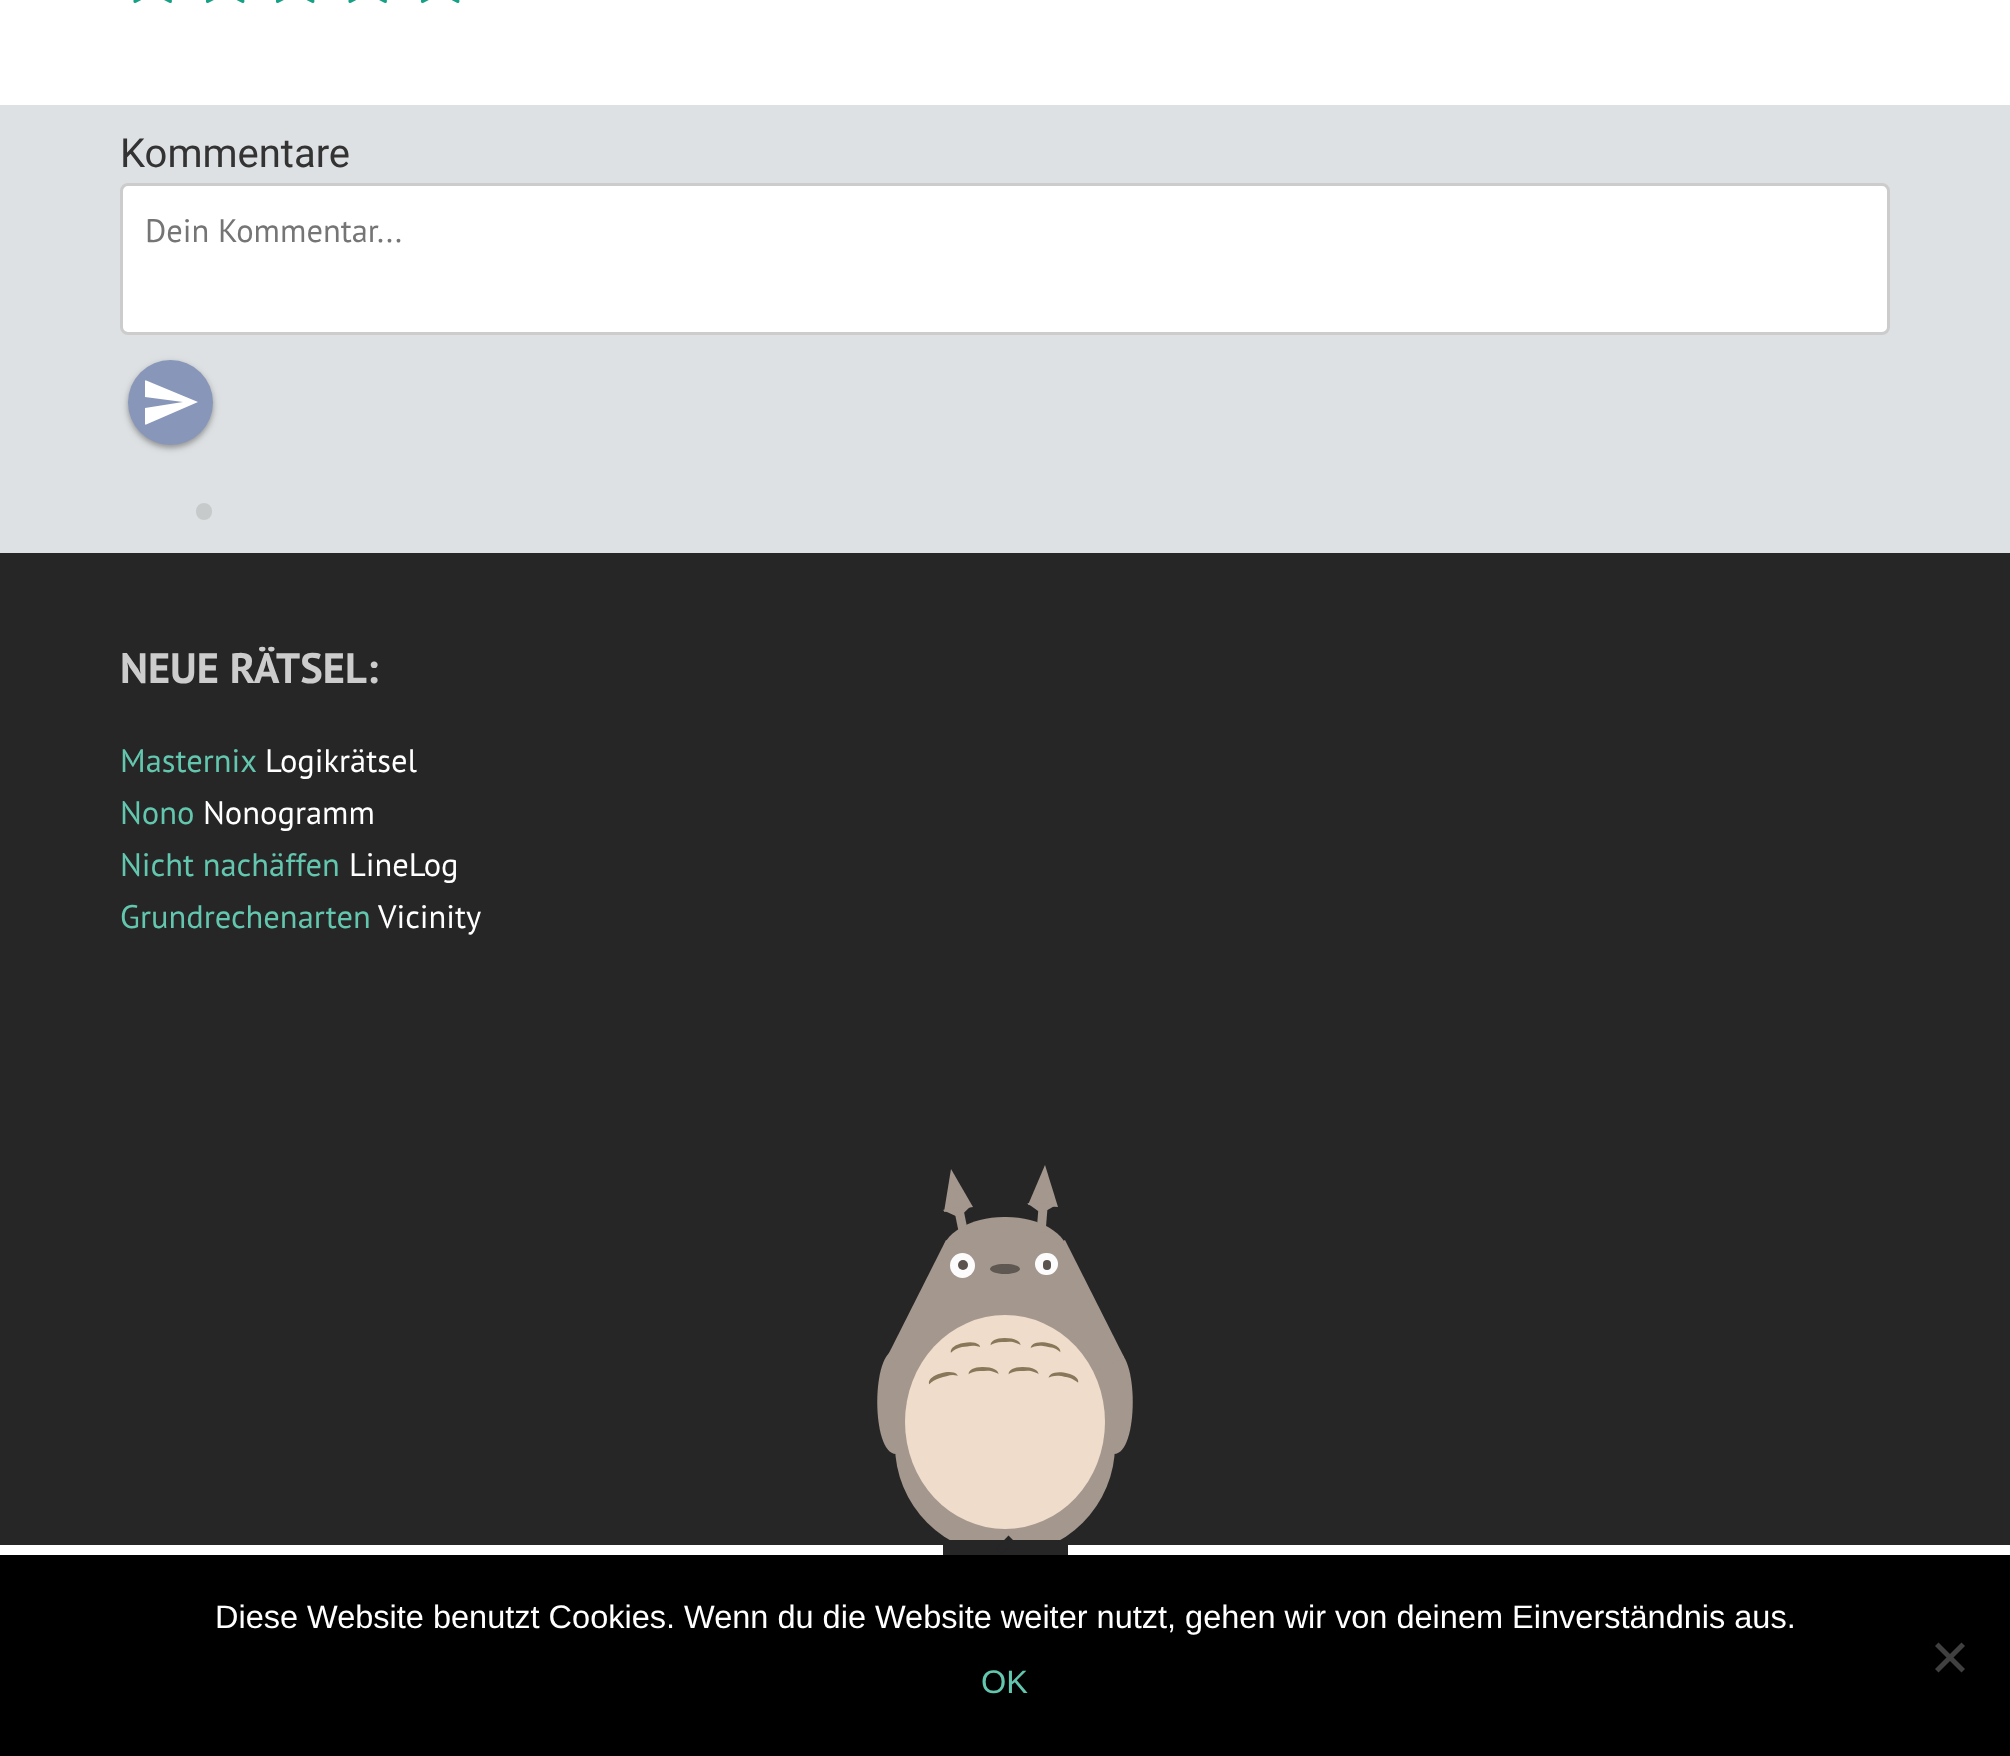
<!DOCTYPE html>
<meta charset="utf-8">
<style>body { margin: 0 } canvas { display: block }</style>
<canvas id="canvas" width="2010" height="1756"></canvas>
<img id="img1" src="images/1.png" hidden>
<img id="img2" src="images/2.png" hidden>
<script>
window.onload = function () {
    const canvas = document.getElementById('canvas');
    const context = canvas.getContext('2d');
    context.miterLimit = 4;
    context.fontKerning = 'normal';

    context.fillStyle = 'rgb(255, 255, 255)';
    context.fillRect(0, 0, 2010, 1756);
    context.drawImage(document.getElementById('img1'), 133, 0, 39, 3);
    context.drawImage(document.getElementById('img2'), 205, 0, 40, 3);
    context.drawImage(document.getElementById('img2'), 275, 0, 40, 3);
    context.drawImage(document.getElementById('img1'), 348, 0, 39, 3);
    context.drawImage(document.getElementById('img2'), 420, 0, 40, 3);
    context.fillStyle = 'rgb(222, 225, 227)';
    context.fillRect(0, 105, 2010, 448);
    context.fillStyle = 'rgb(255, 255, 255)';
    context.beginPath();
    context.roundRect(121.5, 184.5, 1767, 149, 6.5);
    context.fill();
    context.strokeStyle = 'rgb(204, 204, 204)';
    context.lineWidth = 3;
    context.stroke();
    context.fillStyle = 'rgba(0, 0, 0, 0.24)';
    context.filter = 'blur(2.5px)';
    context.beginPath();
    context.roundRect(128, 363, 85, 85, 42.5);
    context.fill();
    context.filter = 'none';
    context.fillStyle = 'rgba(0, 0, 0, 0.12)';
    context.filter = 'blur(4px)';
    context.beginPath();
    context.roundRect(128, 363, 85, 85, 42.5);
    context.fill();
    context.filter = 'none';
    context.fillStyle = 'rgb(136, 151, 185)';
    context.beginPath();
    context.arc(170.5, 402.5, 42.5, 0, 2 * Math.PI);
    context.fill();
    context.fillStyle = 'rgb(255, 255, 255)';
    context.beginPath();
    context.moveTo(145, 425);
    context.lineTo(145, 408);
    context.lineTo(183, 402);
    context.lineTo(145, 397);
    context.lineTo(145, 380);
    context.lineTo(198, 402);
    context.closePath();
    context.fill();
    context.beginPath();
    context.arc(170.5, 402.5, 35.5, 0, 2 * Math.PI);
    context.strokeStyle = 'rgb(136, 151, 185)';
    context.lineWidth = 4;
    context.stroke();
    context.fillStyle = 'rgb(199, 202, 203)';
    context.beginPath();
    context.roundRect(192, 499, 24, 25, 12);
    context.fill();
    context.strokeStyle = 'rgb(222, 225, 227)';
    context.lineWidth = 8;
    context.stroke();
    context.fillStyle = 'rgb(38, 38, 38)';
    context.fillRect(0, 553, 2010, 992);
    context.fillStyle = 'rgb(164, 151, 142)';
    context.beginPath();
    context.moveTo(973, 1207);
    context.lineTo(944, 1212);
    context.lineTo(951, 1169);
    context.closePath();
    context.fill();
    context.beginPath();
    context.moveTo(1004, 1217);
    context.lineTo(1006, 1217);
    context.bezierCurveTo(1040, 1217, 1068, 1234, 1068, 1254);
    context.bezierCurveTo(1068, 1275, 1040, 1292, 1006, 1292);
    context.lineTo(1004, 1292);
    context.bezierCurveTo(970, 1292, 942, 1275, 942, 1254);
    context.bezierCurveTo(942, 1234, 970, 1217, 1004, 1217);
    context.closePath();
    context.fill();
    context.beginPath();
    context.moveTo(955, 1214);
    context.lineTo(964, 1212);
    context.lineTo(969, 1236.5);
    context.lineTo(960, 1238.5);
    context.closePath();
    context.fill();
    context.beginPath();
    context.moveTo(942.5, 1210);
    context.lineTo(972, 1205);
    context.lineTo(959, 1217.5);
    context.closePath();
    context.fill();
    context.beginPath();
    context.moveTo(1058, 1207);
    context.lineTo(1028, 1205);
    context.lineTo(1045, 1165);
    context.closePath();
    context.fill();
    context.beginPath();
    context.moveTo(1038.5, 1207.5);
    context.lineTo(1047.5, 1208);
    context.lineTo(1045.5, 1233);
    context.lineTo(1036.5, 1232.5);
    context.closePath();
    context.fill();
    context.beginPath();
    context.moveTo(1027, 1203);
    context.lineTo(1057, 1204.5);
    context.lineTo(1041.5, 1213.5);
    context.closePath();
    context.fill();
    context.fillRect(944, 1265, 123, 55);
    context.beginPath();
    context.roundRect(895, 1330, 220, 225, 110);
    context.fill();
    context.fillRect(911, 1320, 188, 60);
    context.beginPath();
    context.moveTo(896, 1350);
    context.bezierCurveTo(922, 1350, 922, 1454, 896, 1454);
    context.bezierCurveTo(871, 1454, 871, 1350, 896, 1350);
    context.closePath();
    context.fill();
    context.beginPath();
    context.moveTo(946, 1240);
    context.lineTo(977, 1256);
    context.lineTo(918, 1373);
    context.lineTo(887, 1357);
    context.closePath();
    context.fill();
    context.beginPath();
    context.moveTo(1114, 1350);
    context.bezierCurveTo(1139, 1350, 1139, 1454, 1114, 1454);
    context.bezierCurveTo(1088, 1454, 1088, 1350, 1114, 1350);
    context.closePath();
    context.fill();
    context.beginPath();
    context.moveTo(1034, 1256);
    context.lineTo(1065, 1240);
    context.lineTo(1124, 1357);
    context.lineTo(1093, 1373);
    context.closePath();
    context.fill();
    context.fillStyle = 'rgb(252, 252, 252)';
    context.beginPath();
    context.arc(962.5, 1265.5, 12.5, 0, 2 * Math.PI);
    context.fill();
    context.beginPath();
    context.roundRect(1035, 1253, 23, 22, 11);
    context.fill();
    context.fillStyle = 'rgb(90, 83, 78)';
    context.beginPath();
    context.arc(963, 1265, 5, 0, 2 * Math.PI);
    context.fill();
    context.fillStyle = 'rgb(95, 88, 82)';
    context.beginPath();
    context.moveTo(1004.5, 1264);
    context.lineTo(1005.5, 1264);
    context.bezierCurveTo(1013.5, 1264, 1020, 1266, 1020, 1269);
    context.bezierCurveTo(1020, 1271.5, 1013.5, 1274, 1005.5, 1274);
    context.lineTo(1004.5, 1274);
    context.bezierCurveTo(996.5, 1274, 990, 1271.5, 990, 1269);
    context.bezierCurveTo(990, 1266, 996.5, 1264, 1004.5, 1264);
    context.closePath();
    context.fill();
    context.fillStyle = 'rgb(90, 83, 78)';
    context.beginPath();
    context.roundRect(1043, 1260, 8, 10, 4);
    context.fill();
    context.fillStyle = 'rgb(239, 220, 203)';
    context.beginPath();
    context.ellipse(1005, 1422, 100, 107, 0, 0, 2 * Math.PI);
    context.fill();
    context.fillStyle = 'rgb(137, 119, 90)';
    context.beginPath();
    context.moveTo(963.5, 1343);
    context.bezierCurveTo(985, 1339, 986, 1354, 965.5, 1357);
    context.bezierCurveTo(947, 1359.5, 945.5, 1346, 963.5, 1343);
    context.closePath();
    context.fill();
    context.fillStyle = 'rgb(239, 220, 203)';
    context.beginPath();
    context.moveTo(962, 1347);
    context.bezierCurveTo(966, 1347, 971, 1345, 976, 1346);
    context.bezierCurveTo(996, 1349, 993, 1371, 973, 1376);
    context.bezierCurveTo(969, 1377, 964, 1378, 960, 1377);
    context.bezierCurveTo(939, 1374, 943, 1351, 962, 1347);
    context.closePath();
    context.fill();
    context.fillStyle = 'rgb(137, 119, 90)';
    context.beginPath();
    context.moveTo(1004.5, 1338);
    context.bezierCurveTo(1026.5, 1338, 1025, 1352.5, 1004.5, 1352);
    context.bezierCurveTo(985.5, 1351, 986.5, 1338, 1004.5, 1338);
    context.closePath();
    context.fill();
    context.fillStyle = 'rgb(239, 220, 203)';
    context.beginPath();
    context.moveTo(1002, 1342);
    context.bezierCurveTo(1007, 1342, 1012, 1341, 1016, 1343);
    context.bezierCurveTo(1035, 1349, 1029, 1371, 1009, 1372);
    context.bezierCurveTo(1004, 1372, 999, 1372, 995, 1371);
    context.bezierCurveTo(975, 1364, 983, 1342, 1002, 1342);
    context.closePath();
    context.fill();
    context.fillStyle = 'rgb(137, 119, 90)';
    context.beginPath();
    context.moveTo(1045.5, 1342.5);
    context.bezierCurveTo(1067.5, 1346, 1063.5, 1360, 1043.5, 1356.5);
    context.bezierCurveTo(1024.5, 1353, 1028, 1340, 1045.5, 1342.5);
    context.closePath();
    context.fill();
    context.fillStyle = 'rgb(239, 220, 203)';
    context.beginPath();
    context.moveTo(1043, 1346);
    context.bezierCurveTo(1047, 1347, 1052, 1347, 1056, 1349);
    context.bezierCurveTo(1074, 1359, 1065, 1379, 1045, 1377);
    context.bezierCurveTo(1040, 1377, 1035, 1376, 1031, 1374);
    context.bezierCurveTo(1013, 1365, 1024, 1344, 1043, 1346);
    context.closePath();
    context.fill();
    context.fillStyle = 'rgb(137, 119, 90)';
    context.beginPath();
    context.moveTo(940.5, 1373.5);
    context.bezierCurveTo(962, 1367.5, 964, 1382.5, 944.5, 1387);
    context.bezierCurveTo(925.5, 1391, 923.5, 1378, 940.5, 1373.5);
    context.closePath();
    context.fill();
    context.fillStyle = 'rgb(239, 220, 203)';
    context.beginPath();
    context.moveTo(940, 1378);
    context.bezierCurveTo(944, 1377, 949, 1375, 953, 1375);
    context.bezierCurveTo(974, 1377, 973, 1399, 954, 1405);
    context.bezierCurveTo(949, 1406, 944, 1408, 940, 1407);
    context.bezierCurveTo(919, 1406, 921, 1383, 940, 1378);
    context.closePath();
    context.fill();
    context.fillStyle = 'rgb(137, 119, 90)';
    context.beginPath();
    context.moveTo(982.5, 1367);
    context.bezierCurveTo(1004.5, 1367, 1003, 1381.5, 982.5, 1381);
    context.bezierCurveTo(963.5, 1380, 964.5, 1367, 982.5, 1367);
    context.closePath();
    context.fill();
    context.fillStyle = 'rgb(239, 220, 203)';
    context.beginPath();
    context.moveTo(980, 1371);
    context.bezierCurveTo(985, 1371, 990, 1370, 994, 1372);
    context.bezierCurveTo(1013, 1378, 1007, 1400, 987, 1401);
    context.bezierCurveTo(982, 1401, 977, 1401, 973, 1400);
    context.bezierCurveTo(953, 1393, 961, 1371, 980, 1371);
    context.closePath();
    context.fill();
    context.fillStyle = 'rgb(137, 119, 90)';
    context.beginPath();
    context.moveTo(1022.5, 1367);
    context.bezierCurveTo(1044.5, 1367, 1043, 1381.5, 1022.5, 1381);
    context.bezierCurveTo(1003.5, 1380, 1004.5, 1367, 1022.5, 1367);
    context.closePath();
    context.fill();
    context.fillStyle = 'rgb(239, 220, 203)';
    context.beginPath();
    context.moveTo(1020, 1371);
    context.bezierCurveTo(1025, 1371, 1030, 1370, 1034, 1372);
    context.bezierCurveTo(1053, 1378, 1047, 1400, 1027, 1401);
    context.bezierCurveTo(1022, 1401, 1017, 1401, 1013, 1400);
    context.bezierCurveTo(993, 1393, 1001, 1371, 1020, 1371);
    context.closePath();
    context.fill();
    context.fillStyle = 'rgb(137, 119, 90)';
    context.beginPath();
    context.moveTo(1063.5, 1372.5);
    context.bezierCurveTo(1085.5, 1376, 1081.5, 1390.5, 1061.5, 1386.5);
    context.bezierCurveTo(1042.5, 1383, 1046, 1370, 1063.5, 1372.5);
    context.closePath();
    context.fill();
    context.fillStyle = 'rgb(239, 220, 203)';
    context.beginPath();
    context.moveTo(1061, 1376);
    context.bezierCurveTo(1065, 1377, 1070, 1377, 1074, 1380);
    context.bezierCurveTo(1092, 1389, 1082, 1409, 1062, 1407);
    context.bezierCurveTo(1058, 1406, 1053, 1406, 1049, 1404);
    context.bezierCurveTo(1031, 1394, 1042, 1373, 1061, 1376);
    context.closePath();
    context.fill();
    context.fillStyle = 'rgb(38, 38, 38)';
    context.fillRect(943, 1540, 125, 15);
    context.beginPath();
    context.moveTo(1008.5, 1535.5);
    context.lineTo(1014, 1541);
    context.lineTo(1001.5, 1554);
    context.lineTo(996, 1548.5);
    context.closePath();
    context.fill();
    context.fillStyle = 'rgb(0, 0, 0)';
    context.fillRect(0, 1555, 2010, 201);
    context.fillStyle = 'rgb(64, 64, 64)';
    context.beginPath();
    context.moveTo(1961.5, 1642.5);
    context.lineTo(1965, 1646);
    context.lineTo(1938.5, 1672.5);
    context.lineTo(1935, 1669);
    context.closePath();
    context.fill();
    context.beginPath();
    context.moveTo(1935, 1646);
    context.lineTo(1938.5, 1642.5);
    context.lineTo(1965, 1669);
    context.lineTo(1961.5, 1672.5);
    context.closePath();
    context.fill();
    context.font = '40px Roboto';
    context.fillStyle = 'rgb(51, 51, 51)';
    context.fillText('Kommentare', 120, 167);
    context.font = '32.5px PT Sans';
    context.fillStyle = 'rgb(117, 117, 117)';
    context.fillText('Dein Kommentar...', 145, 242);
    context.font = 'bold 42.5px PT Sans';
    context.fillStyle = 'rgb(204, 204, 204)';
    context.fillText('NEUE RÄTSEL:', 120, 683);
    context.font = '32.5px PT Sans';
    context.fillStyle = 'rgb(99, 198, 174)';
    context.fillText('Masternix', 120, 772);
    context.fillStyle = 'rgb(255, 255, 255)';
    context.fillText('Logikrätsel', 265, 772);
    context.fillStyle = 'rgb(99, 198, 174)';
    context.fillText('Nono', 120, 824);
    context.fillStyle = 'rgb(255, 255, 255)';
    context.fillText('Nonogramm', 203, 824);
    context.fillStyle = 'rgb(99, 198, 174)';
    context.fillText('Nicht nachäffen', 120, 876);
    context.fillStyle = 'rgb(255, 255, 255)';
    context.fillText('LineLog', 349, 876);
    context.fillStyle = 'rgb(99, 198, 174)';
    context.fillText('Grundrechenarten', 120, 928);
    context.fillStyle = 'rgb(255, 255, 255)';
    context.fillText('Vicinity', 378, 928);
    context.font = '32.5px Liberation Sans';
    context.fillText('Diese Website benutzt Cookies. Wenn du die Website weiter nutzt, gehen wir von deinem Einverständnis aus.', 215, 1628);
    context.fillStyle = 'rgb(99, 198, 174)';
    context.fillText('OK', 981, 1693);
};
</script>
